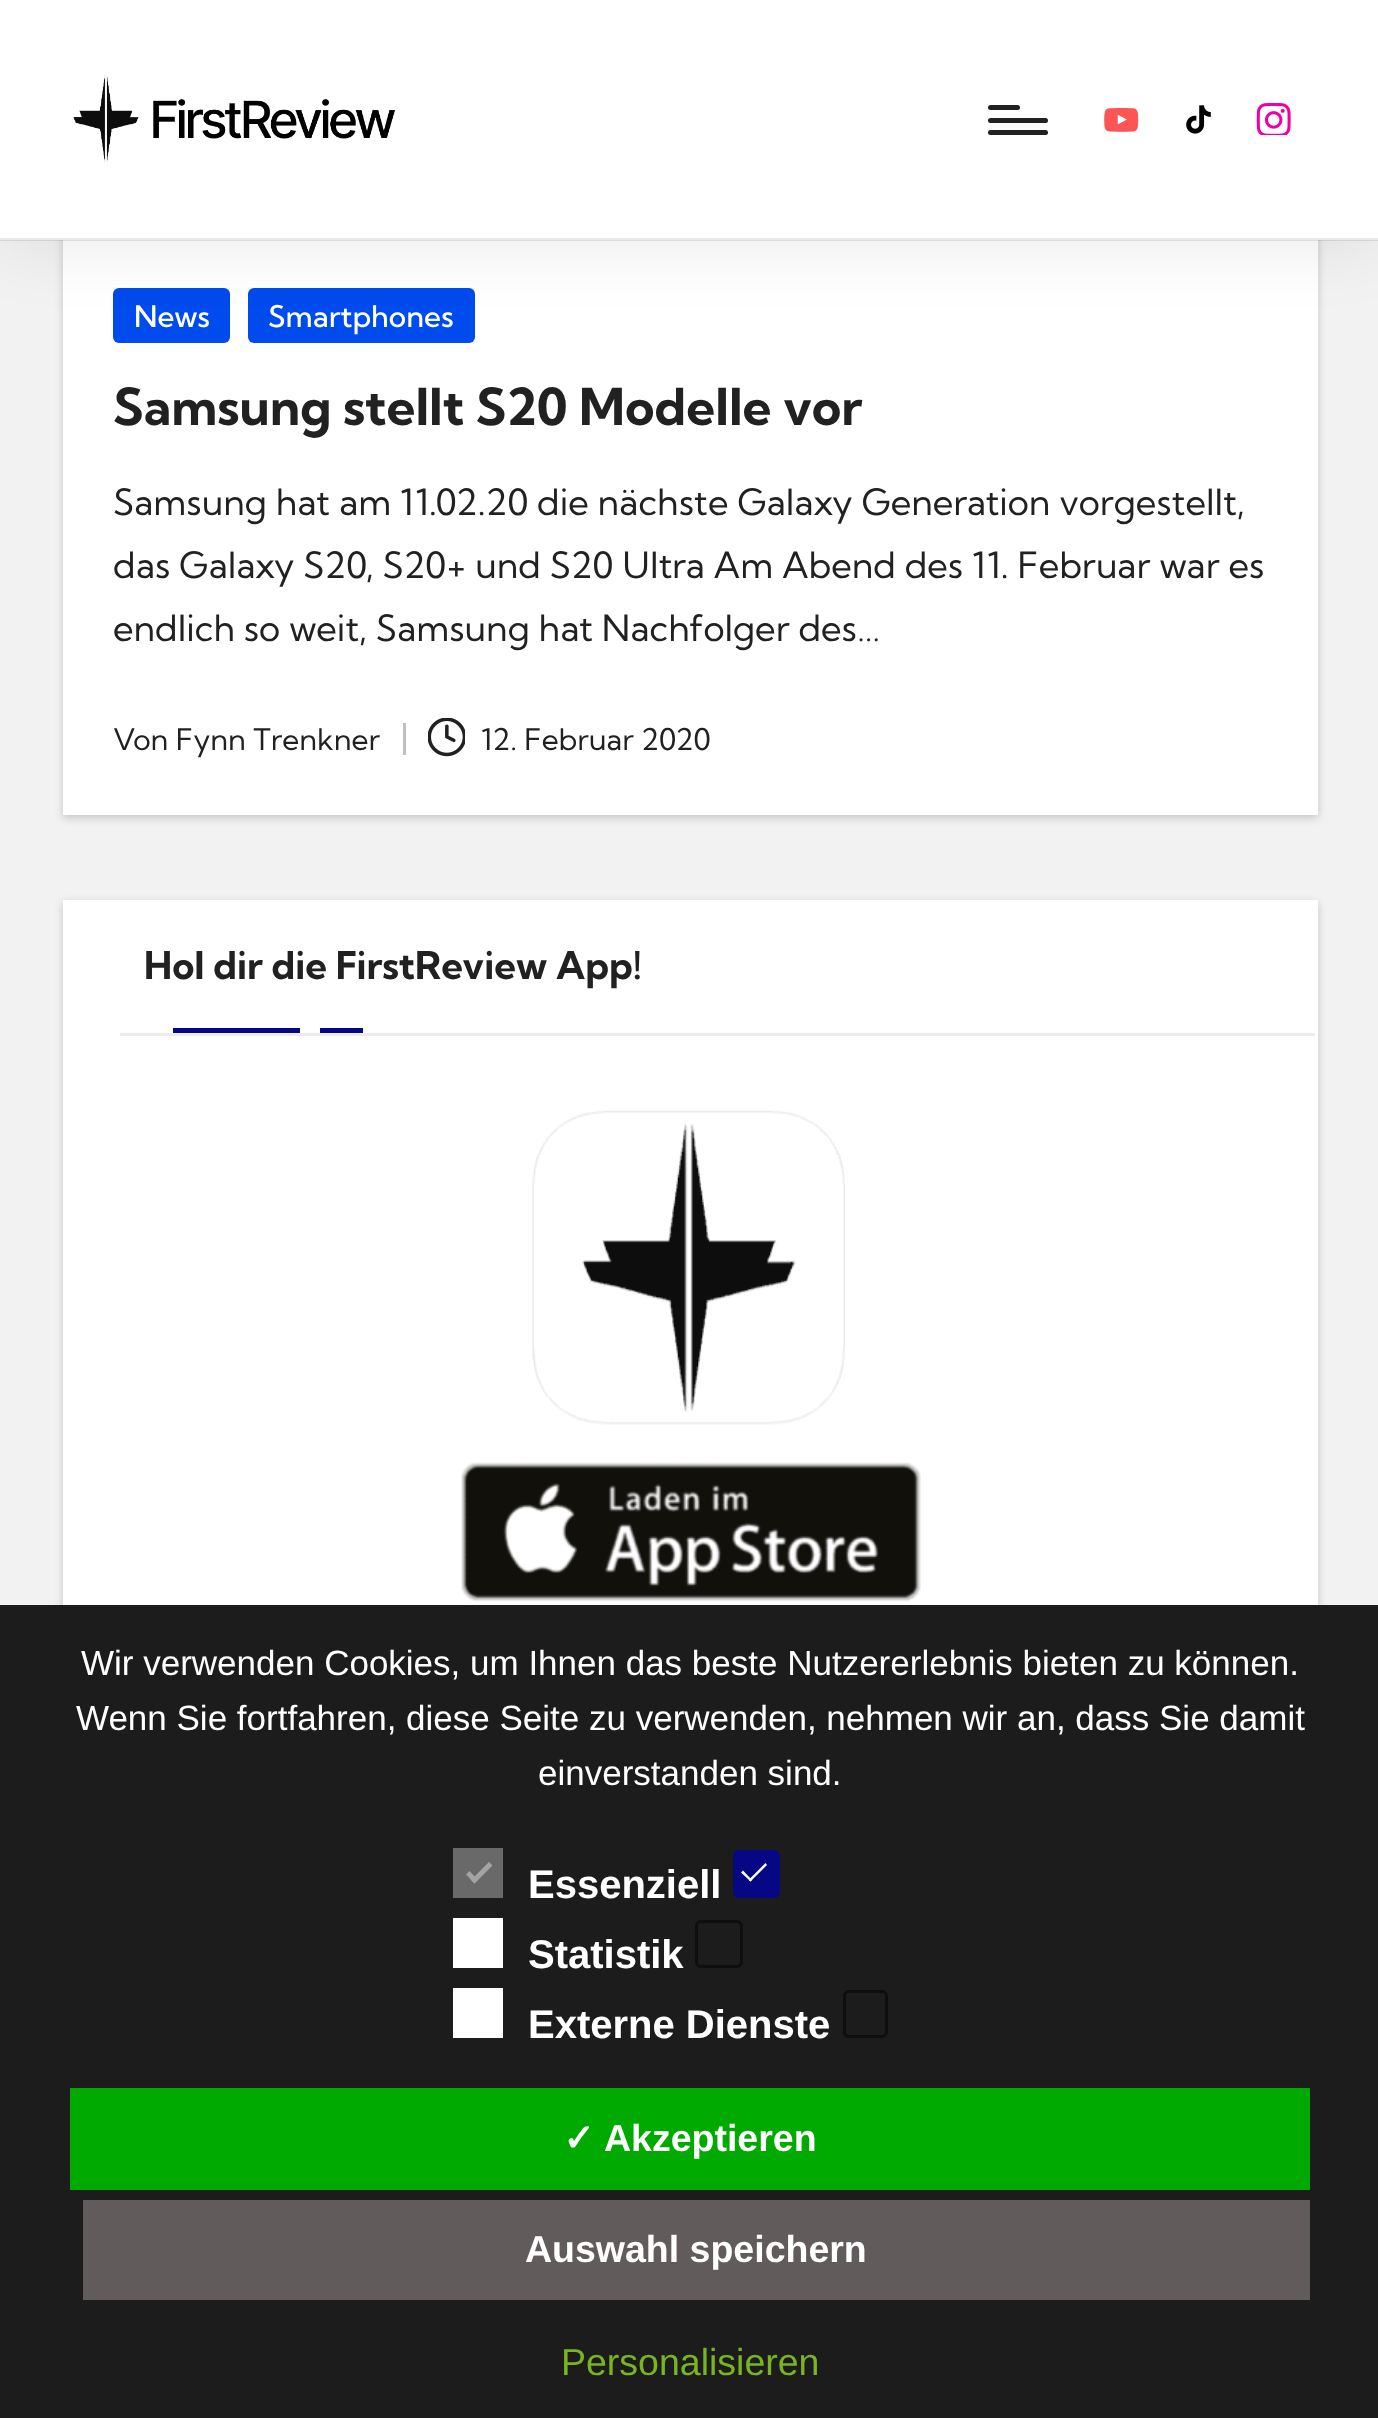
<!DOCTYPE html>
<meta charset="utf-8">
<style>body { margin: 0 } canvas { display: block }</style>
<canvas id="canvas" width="1378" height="2418"></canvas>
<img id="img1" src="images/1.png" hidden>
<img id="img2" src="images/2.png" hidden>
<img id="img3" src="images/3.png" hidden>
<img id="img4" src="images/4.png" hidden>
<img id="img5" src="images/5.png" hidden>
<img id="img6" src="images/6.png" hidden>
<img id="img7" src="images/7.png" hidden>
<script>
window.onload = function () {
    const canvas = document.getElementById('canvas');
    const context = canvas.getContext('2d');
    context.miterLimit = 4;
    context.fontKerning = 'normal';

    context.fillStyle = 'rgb(242, 242, 242)';
    context.fillRect(0, 0, 1378, 2418);
    context.fillStyle = 'rgba(0, 0, 0, 0.18)';
    context.filter = 'blur(4px)';
    context.beginPath();
    context.rect(63, -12, 1255, 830);
    context.fill();
    context.filter = 'none';
    context.fillStyle = 'rgb(255, 255, 255)';
    context.fillRect(63, 240, 1255, 575);
    context.fillStyle = 'rgb(0, 75, 237)';
    context.beginPath();
    context.roundRect(113, 288, 117, 55, 6);
    context.fill();
    context.beginPath();
    context.roundRect(248, 288, 227, 55, 6);
    context.fill();
    context.fillStyle = 'rgba(0, 0, 0, 0.08)';
    context.filter = 'blur(32px)';
    context.beginPath();
    context.rect(0, 8, 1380, 240);
    context.fill();
    context.filter = 'none';
    context.fillStyle = 'rgb(255, 255, 255)';
    context.fillRect(0, 0, 1378, 240);
    context.fillStyle = 'rgba(0, 0, 0, 0.09)';
    context.fillRect(0, 238, 1378, 3);
    context.drawImage(document.getElementById('img1'), 73, 75, 322, 88);
    context.fillStyle = 'rgb(33, 33, 33)';
    context.beginPath();
    context.roundRect(988, 118, 60, 5, 2.5);
    context.fill();
    context.beginPath();
    context.roundRect(988, 105, 32, 5, 2.5);
    context.fill();
    context.beginPath();
    context.roundRect(988, 130, 60, 5, 2.5);
    context.fill();
    context.drawImage(document.getElementById('img2'), 1104, 108, 35, 24);
    context.drawImage(document.getElementById('img3'), 1186, 105, 25, 29);
    context.drawImage(document.getElementById('img4'), 1256, 103, 35, 32);
    context.fillStyle = 'rgb(191, 191, 191)';
    context.fillRect(403, 723, 3, 32);
    context.drawImage(document.getElementById('img5'), 428, 718, 37, 39);
    context.fillStyle = 'rgba(0, 0, 0, 0.18)';
    context.filter = 'blur(4px)';
    context.beginPath();
    context.rect(63, 903, 1255, 772);
    context.fill();
    context.filter = 'none';
    context.fillStyle = 'rgb(255, 255, 255)';
    context.fillRect(63, 900, 1255, 705);
    context.fillStyle = 'rgb(236, 236, 236)';
    context.fillRect(120, 1033, 1195, 3);
    context.fillStyle = 'rgb(5, 7, 132)';
    context.fillRect(173, 1028, 127, 5);
    context.fillRect(320, 1028, 43, 5);
    context.drawImage(document.getElementById('img6'), 532, 1110, 313, 315);
    context.drawImage(document.getElementById('img7'), 461, 1462, 460, 140);
    context.fillStyle = 'rgb(29, 28, 28)';
    context.fillRect(0, 1605, 1378, 813);
    context.fillStyle = 'rgb(105, 105, 105)';
    context.fillRect(453, 1848, 50, 50);
    context.fillStyle = 'rgb(165, 164, 164)';
    context.beginPath();
    context.moveTo(489, 1862);
    context.lineTo(492.5, 1865.5);
    context.lineTo(474.5, 1883.5);
    context.lineTo(471, 1880);
    context.closePath();
    context.fill();
    context.beginPath();
    context.moveTo(469.5, 1871);
    context.lineTo(478, 1880);
    context.lineTo(474.5, 1883.5);
    context.lineTo(466, 1874.5);
    context.closePath();
    context.fill();
    context.fillStyle = 'rgb(5, 7, 132)';
    context.beginPath();
    context.roundRect(734.5, 1851.5, 44, 45, 4.5);
    context.fill();
    context.strokeStyle = 'rgb(5, 7, 132)';
    context.lineWidth = 3;
    context.stroke();
    context.fillStyle = 'rgb(255, 255, 255)';
    context.beginPath();
    context.moveTo(765.5, 1863);
    context.lineTo(767, 1865);
    context.lineTo(750.5, 1881.5);
    context.lineTo(748.5, 1880);
    context.closePath();
    context.fill();
    context.beginPath();
    context.moveTo(743, 1870.5);
    context.lineTo(752, 1880);
    context.lineTo(750.5, 1881.5);
    context.lineTo(741, 1872.5);
    context.closePath();
    context.fill();
    context.fillRect(453, 1918, 50, 50);
    context.beginPath();
    context.roundRect(696.5, 1921.5, 45, 45, 4.5);
    context.strokeStyle = 'rgb(15, 14, 14)';
    context.stroke();
    context.fillRect(453, 1988, 50, 50);
    context.beginPath();
    context.roundRect(844.5, 1991.5, 42, 45, 4.5);
    context.stroke();
    context.fillStyle = 'rgb(0, 170, 0)';
    context.fillRect(70, 2088, 1240, 102);
    context.fillStyle = 'rgb(97, 91, 91)';
    context.fillRect(83, 2200, 1227, 100);
    context.font = '500 29.75px Kumbh Sans';
    context.fillStyle = 'rgb(255, 255, 255)';
    context.fillText('News', 134, 327);
    context.fillText('Smartphones', 268, 327);
    context.font = 'bold 50.9px Kumbh Sans';
    context.fillStyle = 'rgb(33, 33, 33)';
    context.fillText('Samsung stellt S20 Modelle vor', 113, 425);
    context.font = '36.05px Kumbh Sans';
    context.fillText('Samsung hat am 11.02.20 die nächste Galaxy Generation vorgestellt,', 113, 515);
    context.fillText('das Galaxy S20, S20+ und S20 Ultra Am Abend des 11. Februar war es', 113, 578);
    context.fillText('endlich so weit, Samsung hat Nachfolger des…', 113, 641);
    context.font = '29.75px Kumbh Sans';
    context.fillText('Von Fynn Trenkner', 113, 750);
    context.fillText('12. Februar 2020', 481, 750);
    context.font = 'bold 38.2px Kumbh Sans';
    context.fillText('Hol dir die FirstReview App!', 144, 979);
    context.font = '35px Liberation Sans';
    context.fillStyle = 'rgb(255, 255, 255)';
    context.fillText('Wir verwenden Cookies, um Ihnen das beste Nutzererlebnis bieten zu können.', 81, 1675);
    context.fillText('Wenn Sie fortfahren, diese Seite zu verwenden, nehmen wir an, dass Sie damit', 76, 1730);
    context.fillText('einverstanden sind.', 538, 1785);
    context.font = 'bold 40px Liberation Sans';
    context.fillText('Essenziell', 528, 1898);
    context.fillText('Statistik', 528, 1968);
    context.fillText('Externe Dienste', 528, 2038);
    context.font = 'bold 37.5px DejaVu Sans';
    context.fillText('✓', 563, 2151);
    context.font = 'bold 37.5px Liberation Sans';
    context.fillText('Akzeptieren', 604, 2151);
    context.fillText('Auswahl speichern', 525, 2262);
    context.font = '37.5px Liberation Sans';
    context.fillStyle = 'rgb(121, 181, 31)';
    context.fillText('Personalisieren', 561, 2375);
};
</script>
